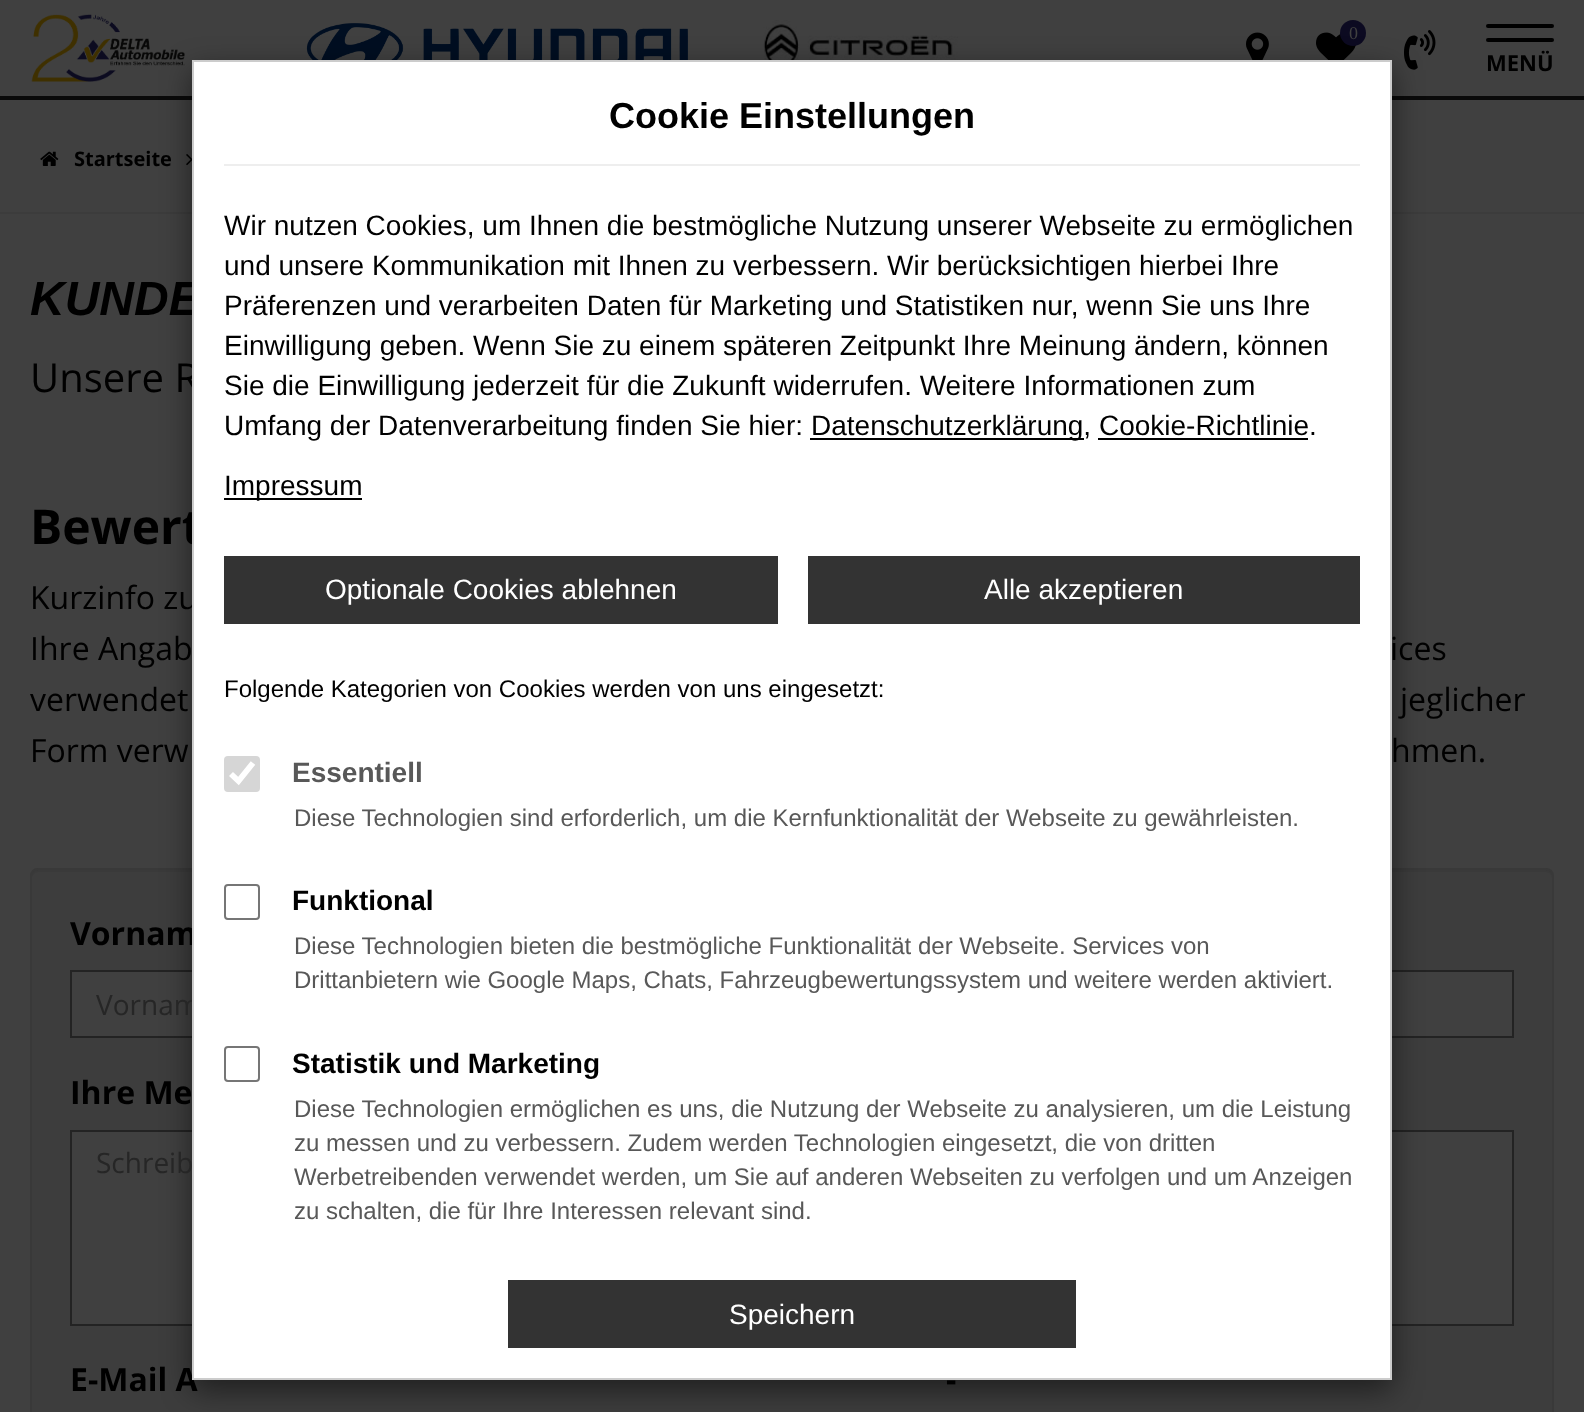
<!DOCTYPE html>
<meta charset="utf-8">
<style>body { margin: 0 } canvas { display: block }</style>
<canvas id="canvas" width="1584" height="1412"></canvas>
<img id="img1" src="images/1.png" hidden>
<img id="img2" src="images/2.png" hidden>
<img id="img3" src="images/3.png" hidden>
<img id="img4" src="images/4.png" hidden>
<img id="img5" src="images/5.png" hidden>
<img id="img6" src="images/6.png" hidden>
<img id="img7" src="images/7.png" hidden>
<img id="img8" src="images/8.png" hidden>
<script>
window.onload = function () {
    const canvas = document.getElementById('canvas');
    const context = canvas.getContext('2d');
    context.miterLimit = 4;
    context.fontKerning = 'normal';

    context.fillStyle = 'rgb(64, 64, 64)';
    context.fillRect(0, 0, 1584, 1412);
    context.fillStyle = 'rgb(10, 10, 10)';
    context.fillRect(0, 96, 1584, 4);
    context.drawImage(document.getElementById('img1'), 31, 14, 154, 68);
    context.drawImage(document.getElementById('img2'), 306, 23, 382, 37);
    context.drawImage(document.getElementById('img3'), 763, 20, 195, 40);
    context.drawImage(document.getElementById('img4'), 1246, 32, 23, 28);
    context.drawImage(document.getElementById('img5'), 1316, 32, 40, 28);
    context.fillStyle = 'rgb(12, 10, 33)';
    context.beginPath();
    context.arc(1353, 33, 13, 0, 2 * Math.PI);
    context.fill();
    context.drawImage(document.getElementById('img6'), 1404, 30, 32, 40);
    context.fillStyle = 'rgb(0, 0, 0)';
    context.beginPath();
    context.roundRect(1486, 24, 68, 4, 2);
    context.fill();
    context.beginPath();
    context.roundRect(1486, 38, 68, 4, 2);
    context.fill();
    context.fillStyle = 'rgb(60, 60, 60)';
    context.fillRect(0, 212, 1584, 2);
    context.drawImage(document.getElementById('img7'), 40, 151, 19, 15);
    context.drawImage(document.getElementById('img8'), 186, 154, 6, 12);
    context.fillStyle = 'rgb(61, 61, 61)';
    context.beginPath();
    context.roundRect(30, 868, 1524, 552, 8);
    context.fill();
    context.fillStyle = 'rgb(58, 58, 58)';
    context.beginPath();
    context.moveTo(38, 872);
    context.lineTo(1546, 872);
    context.bezierCurveTo(1549, 872, 1552, 875, 1552, 878);
    context.bezierCurveTo(1552, 874, 1551, 870, 1546, 870);
    context.lineTo(38, 870);
    context.bezierCurveTo(33, 870, 32, 874, 32, 878);
    context.bezierCurveTo(32, 875, 35, 872, 38, 872);
    context.closePath();
    context.fill();
    context.beginPath();
    context.roundRect(31, 869, 1522, 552, 7);
    context.strokeStyle = 'rgb(57, 57, 57)';
    context.lineWidth = 2;
    context.stroke();
    context.fillStyle = 'rgb(64, 64, 64)';
    context.fillRect(72, 972, 120, 64);
    context.strokeStyle = 'rgb(35, 35, 35)';
    context.strokeRect(71, 971, 690, 66);
    context.fillRect(1392, 972, 120, 64);
    context.strokeRect(823, 971, 690, 66);
    context.beginPath();
    context.rect(71, 1131, 1442, 194);
    context.fill();
    context.stroke();
    context.fillStyle = 'rgba(0, 0, 0, 0.5)';
    context.filter = 'blur(15px)';
    context.beginPath();
    context.rect(192, 70, 1200, 1320);
    context.fill();
    context.filter = 'none';
    context.font = '18px Liberation Serif';
    context.fillStyle = 'rgb(64, 64, 64)';
    context.fillText('0', 1349, 39);
    context.font = 'bold 22px Open Sans';
    context.fillStyle = 'rgb(0, 0, 0)';
    context.fillText('MENÜ', 1486, 71);
    context.font = 'bold 20px Open Sans';
    context.fillText('Startseite', 74, 166);
    context.font = 'italic bold 48px Liberation Sans';
    context.fillText('KUNDE', 30, 315);
    context.font = '40px Open Sans';
    context.fillText('Unsere R', 30, 392);
    context.font = 'bold 48px Open Sans';
    context.fillText('Bewert', 30, 544);
    context.font = '32px Open Sans';
    context.fillText('Kurzinfo zu', 30, 609);
    context.fillText('Ihre Angab', 30, 660);
    context.fillText('ices', 1390, 660);
    context.fillText('verwendet', 30, 711);
    context.fillText('jeglicher', 1400, 711);
    context.fillText('Form verw', 30, 762);
    context.fillText('hmen.', 1391, 762);
    context.font = 'bold 32px Open Sans';
    context.fillText('Vornam', 70, 945);
    context.font = '28px Open Sans';
    context.fillStyle = 'rgb(38, 38, 38)';
    context.fillText('Vornam', 96, 1015);
    context.font = 'bold 32px Open Sans';
    context.fillStyle = 'rgb(0, 0, 0)';
    context.fillText('Ihre Me', 70, 1104);
    context.font = '28px Open Sans';
    context.fillStyle = 'rgb(38, 38, 38)';
    context.fillText('Schreib', 96, 1173);
    context.font = 'bold 32px Open Sans';
    context.fillStyle = 'rgb(0, 0, 0)';
    context.fillText('E-Mail A', 70, 1391);
    context.fillText('-', 946, 1391);
    context.fillStyle = 'rgb(255, 255, 255)';
    context.beginPath();
    context.rect(193, 61, 1198, 1318);
    context.fill();
    context.strokeStyle = 'rgb(204, 204, 204)';
    context.stroke();
    context.fillStyle = 'rgb(238, 238, 238)';
    context.fillRect(224, 164, 1136, 2);
    context.font = 'bold 36px Liberation Sans';
    context.fillStyle = 'rgb(0, 0, 0)';
    context.fillText('Cookie Einstellungen', 609, 128);
    context.font = '28px Liberation Sans';
    context.fillText('Wir nutzen Cookies, um Ihnen die bestmögliche Nutzung unserer Webseite zu ermöglichen', 224, 235);
    context.fillText('und unsere Kommunikation mit Ihnen zu verbessern. Wir berücksichtigen hierbei Ihre', 224, 275);
    context.fillText('Präferenzen und verarbeiten Daten für Marketing und Statistiken nur, wenn Sie uns Ihre', 224, 315);
    context.fillText('Einwilligung geben. Wenn Sie zu einem späteren Zeitpunkt Ihre Meinung ändern, können', 224, 355);
    context.fillText('Sie die Einwilligung jederzeit für die Zukunft widerrufen. Weitere Informationen zum', 224, 395);
    context.fillText('Umfang der Datenverarbeitung finden Sie hier:', 224, 435);
    context.fillRect(810, 438, 274, 2);
    context.fillText('Datenschutzerklärung, Cookie-Richtlinie.', 811, 435);
    context.fillRect(1098, 438, 210, 2);
    context.fillRect(224, 498, 138, 2);
    context.fillText('Impressum', 224, 495);
    context.fillStyle = 'rgb(51, 51, 51)';
    context.fillRect(224, 556, 554, 68);
    context.fillStyle = 'rgb(255, 255, 255)';
    context.fillText('Optionale Cookies ablehnen', 325, 599);
    context.fillStyle = 'rgb(51, 51, 51)';
    context.fillRect(808, 556, 552, 68);
    context.fillStyle = 'rgb(255, 255, 255)';
    context.fillText('Alle akzeptieren', 984, 599);
    context.font = '24px Liberation Sans';
    context.fillStyle = 'rgb(0, 0, 0)';
    context.fillText('Folgende Kategorien von Cookies werden von uns eingesetzt:', 224, 697);
    context.fillStyle = 'rgb(214, 214, 214)';
    context.beginPath();
    context.roundRect(224, 756, 36, 36, 4);
    context.fill();
    context.beginPath();
    context.moveTo(231, 774);
    context.lineTo(238.5, 781);
    context.lineTo(253, 763);
    context.strokeStyle = 'rgb(255, 255, 255)';
    context.lineWidth = 5.8;
    context.stroke();
    context.font = 'bold 28px Liberation Sans';
    context.fillStyle = 'rgb(88, 88, 88)';
    context.fillText('Essentiell', 292, 782);
    context.font = '24px Liberation Sans';
    context.fillText('Diese Technologien sind erforderlich, um die Kernfunktionalität der Webseite zu gewährleisten.', 294, 826);
    context.beginPath();
    context.roundRect(225, 885, 34, 34, 3);
    context.strokeStyle = 'rgb(118, 118, 118)';
    context.lineWidth = 2;
    context.stroke();
    context.font = 'bold 28px Liberation Sans';
    context.fillStyle = 'rgb(0, 0, 0)';
    context.fillText('Funktional', 292, 910);
    context.font = '24px Liberation Sans';
    context.fillStyle = 'rgb(88, 88, 88)';
    context.fillText('Diese Technologien bieten die bestmögliche Funktionalität der Webseite. Services von', 294, 954);
    context.fillText('Drittanbietern wie Google Maps, Chats, Fahrzeugbewertungssystem und weitere werden aktiviert.', 294, 988);
    context.beginPath();
    context.roundRect(225, 1047, 34, 34, 3);
    context.stroke();
    context.font = 'bold 28px Liberation Sans';
    context.fillStyle = 'rgb(0, 0, 0)';
    context.fillText('Statistik und Marketing', 292, 1073);
    context.font = '24px Liberation Sans';
    context.fillStyle = 'rgb(88, 88, 88)';
    context.fillText('Diese Technologien ermöglichen es uns, die Nutzung der Webseite zu analysieren, um die Leistung', 294, 1117);
    context.fillText('zu messen und zu verbessern. Zudem werden Technologien eingesetzt, die von dritten', 294, 1151);
    context.fillText('Werbetreibenden verwendet werden, um Sie auf anderen Webseiten zu verfolgen und um Anzeigen', 294, 1185);
    context.fillText('zu schalten, die für Ihre Interessen relevant sind.', 294, 1219);
    context.fillStyle = 'rgb(51, 51, 51)';
    context.fillRect(508, 1280, 568, 68);
    context.font = '28px Liberation Sans';
    context.fillStyle = 'rgb(255, 255, 255)';
    context.fillText('Speichern', 729, 1324);
};
</script>
